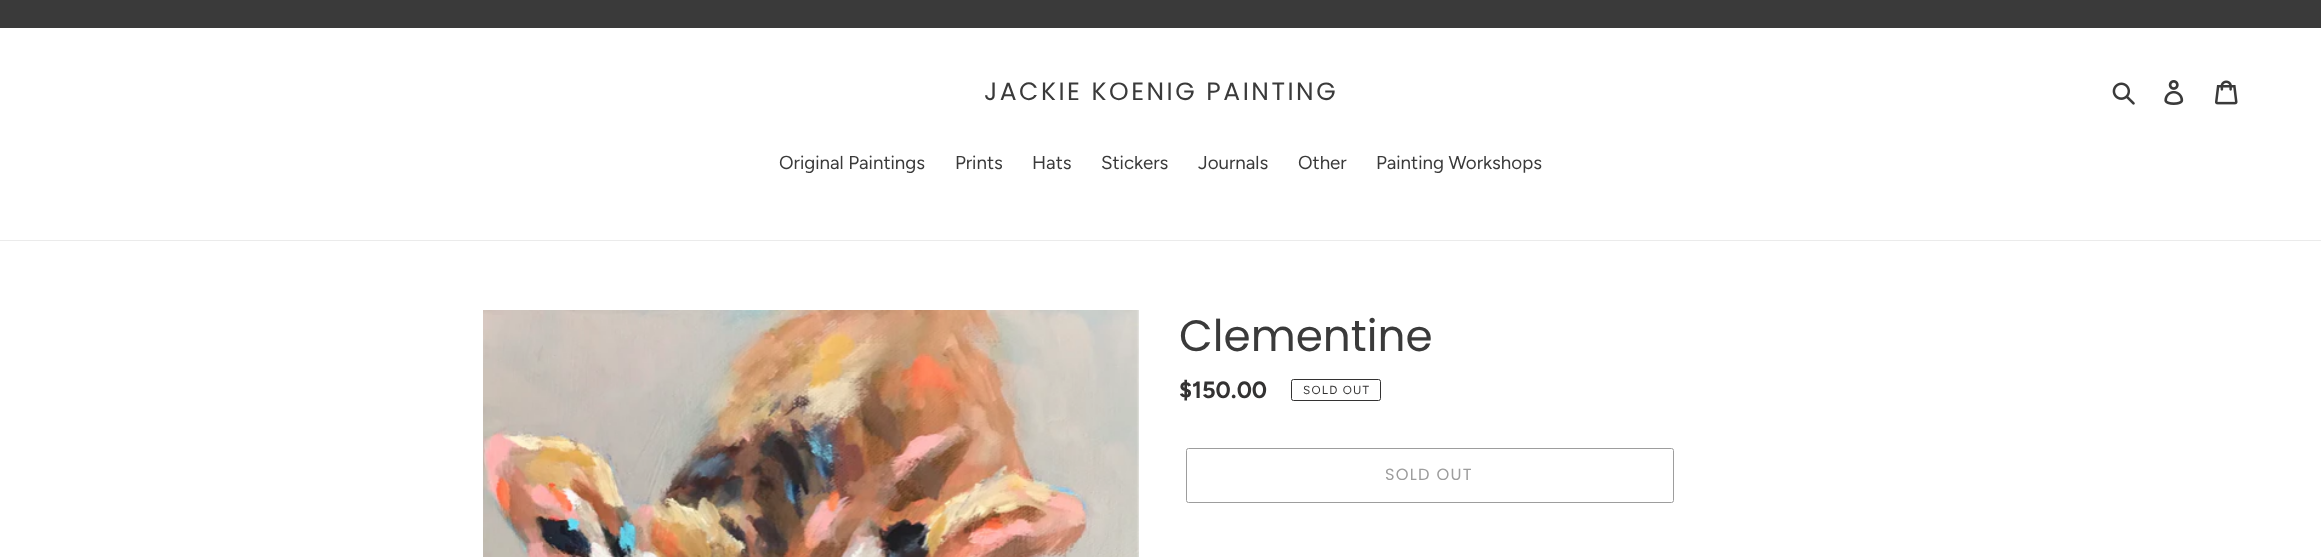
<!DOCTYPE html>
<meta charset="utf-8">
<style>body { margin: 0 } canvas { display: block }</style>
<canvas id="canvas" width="2321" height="557"></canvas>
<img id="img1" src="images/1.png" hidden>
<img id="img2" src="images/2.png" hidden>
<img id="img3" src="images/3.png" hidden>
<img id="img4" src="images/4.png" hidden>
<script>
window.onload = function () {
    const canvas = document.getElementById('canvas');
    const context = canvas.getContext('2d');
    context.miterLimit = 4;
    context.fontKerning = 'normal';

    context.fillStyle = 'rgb(255, 255, 255)';
    context.fillRect(0, 0, 2321, 557);
    context.fillStyle = 'rgb(58, 58, 58)';
    context.fillRect(0, 0, 2321, 28);
    context.drawImage(document.getElementById('img1'), 2112, 82, 23, 23);
    context.drawImage(document.getElementById('img2'), 2164, 80, 20, 25);
    context.drawImage(document.getElementById('img3'), 2215, 80, 23, 25);
    context.fillStyle = 'rgb(235, 235, 235)';
    context.fillRect(0, 240, 2321, 1);
    context.drawImage(document.getElementById('img4'), 483, 310, 656, 247);
    context.beginPath();
    context.roundRect(1291.5, 379.5, 89, 21, 2);
    context.strokeStyle = 'rgb(51, 50, 50)';
    context.stroke();
    context.beginPath();
    context.roundRect(1186.5, 448.5, 487, 54, 2);
    context.strokeStyle = 'rgb(157, 157, 157)';
    context.stroke();
    context.letterSpacing = '2.5px';
    context.font = '25px Poppins';
    context.fillStyle = 'rgb(58, 58, 58)';
    context.fillText('JACKIE KOENIG PAINTING', 984, 100);
    context.letterSpacing = '0px';
    context.font = '18.75px Figtree';
    context.fillText('Original Paintings', 779, 169);
    context.fillText('Prints', 955, 169);
    context.fillText('Hats', 1032, 169);
    context.fillText('Stickers', 1101, 169);
    context.fillText('Journals', 1198, 169);
    context.fillText('Other', 1298, 169);
    context.fillText('Painting Workshops', 1376, 169);
    context.font = '43.75px Poppins';
    context.fillText('Clementine', 1179, 351);
    context.font = 'bold 23.5px Figtree';
    context.fillStyle = 'rgb(51, 50, 50)';
    context.fillText('$150.00', 1179, 398);
    context.letterSpacing = '1.25px';
    context.font = '11.75px Figtree';
    context.fillText('SOLD OUT', 1303, 394);
    context.font = '16.25px Poppins';
    context.fillStyle = 'rgb(157, 157, 157)';
    context.fillText('SOLD OUT', 1385, 480);
};
</script>
